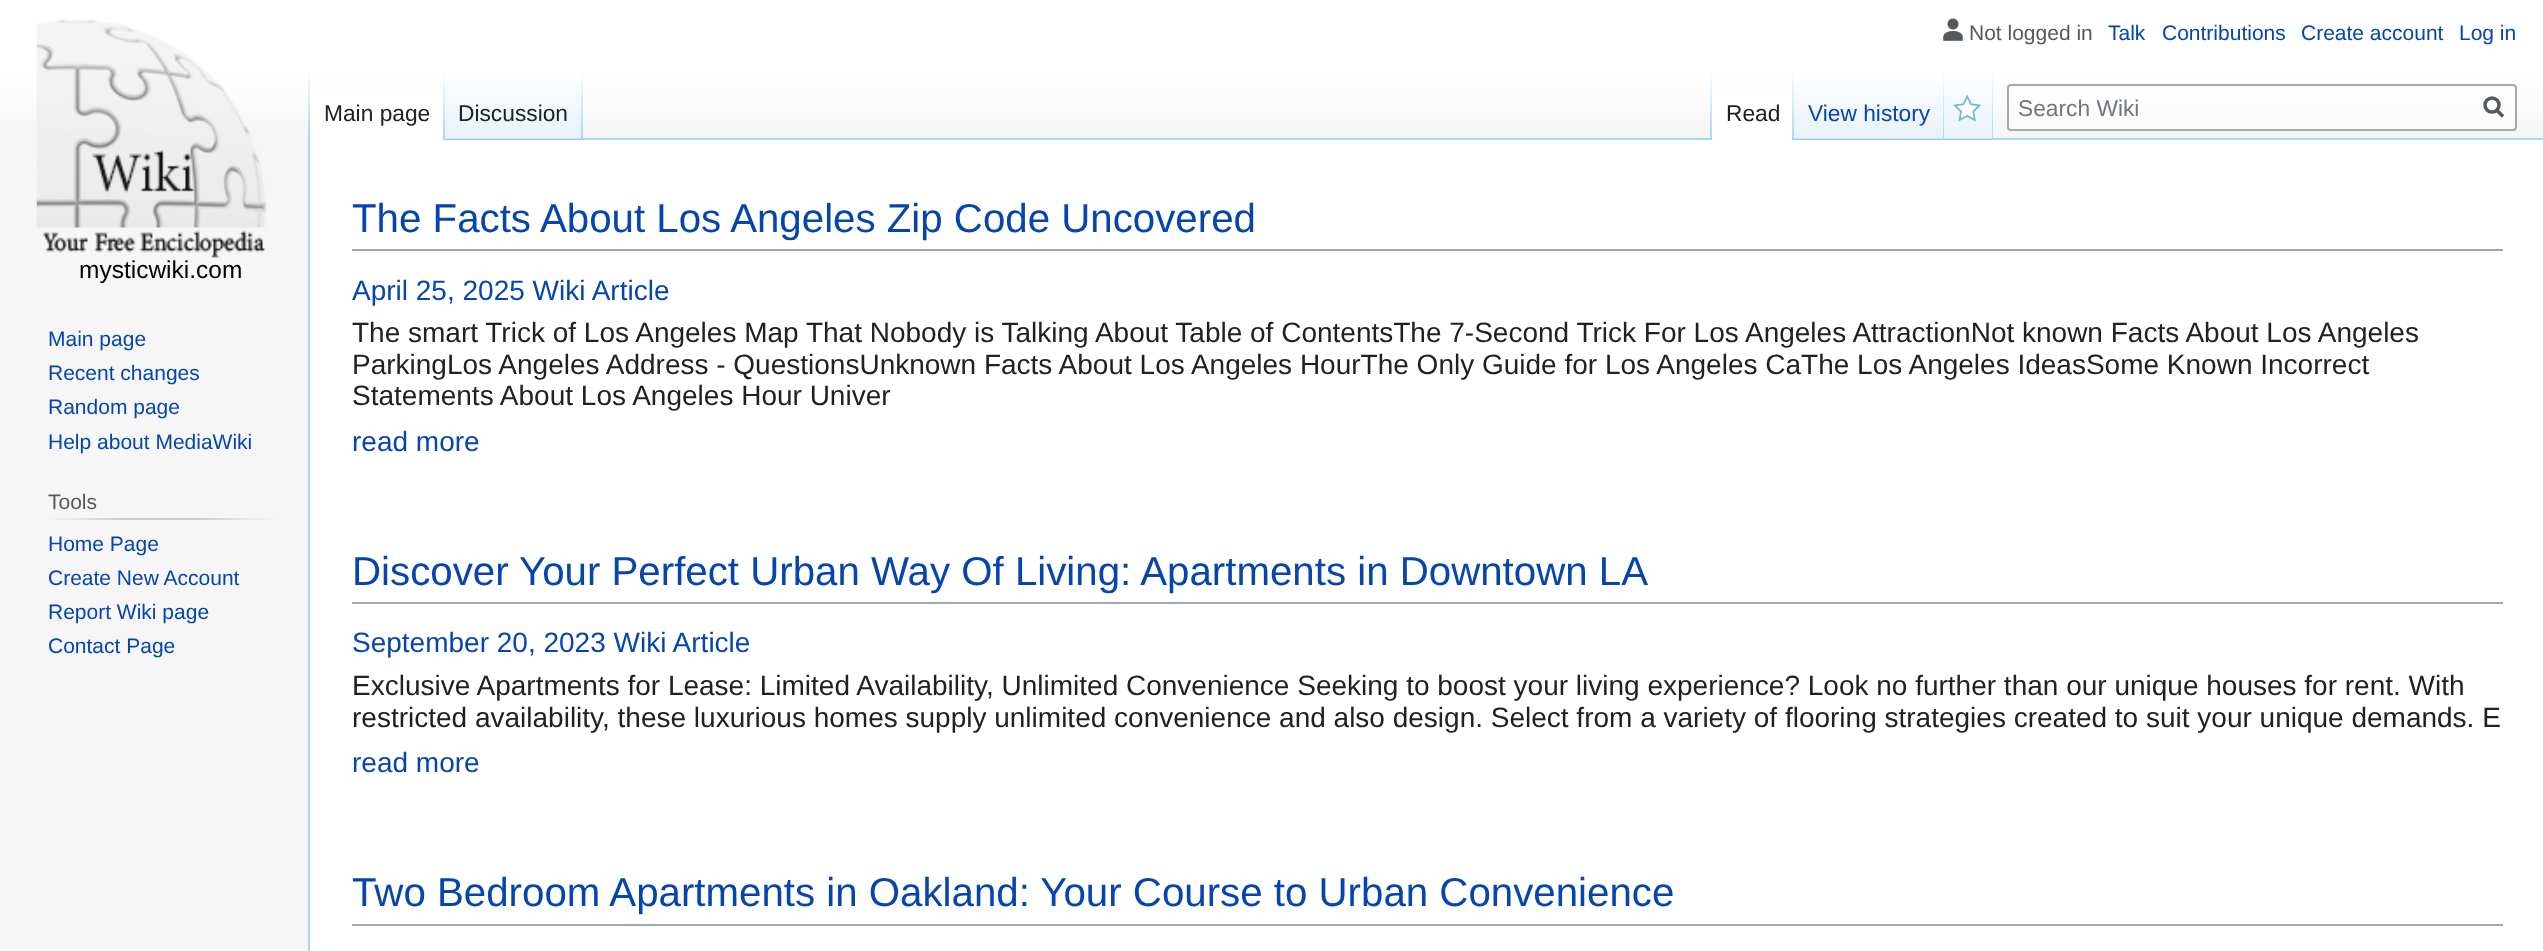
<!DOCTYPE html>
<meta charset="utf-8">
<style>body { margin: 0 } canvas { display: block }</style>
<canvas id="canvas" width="2543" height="951"></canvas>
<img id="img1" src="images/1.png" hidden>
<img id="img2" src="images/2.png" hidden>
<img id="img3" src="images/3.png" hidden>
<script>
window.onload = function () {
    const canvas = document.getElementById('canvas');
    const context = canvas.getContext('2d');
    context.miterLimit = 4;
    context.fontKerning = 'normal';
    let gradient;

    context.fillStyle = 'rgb(246, 246, 246)';
    context.fillRect(0, 0, 2543, 951);
    gradient = context.createLinearGradient(1272, 0, 1272, 140);
    gradient.addColorStop(0.5, 'rgb(255, 255, 255)');
    gradient.addColorStop(1, 'rgb(246, 246, 246)');
    context.fillStyle = gradient;
    context.fillRect(0, 0, 2543, 121);
    context.drawImage(document.getElementById('img1'), 1943, 18, 20, 23);
    context.fillStyle = 'rgb(167, 215, 249)';
    context.fillRect(308, 138, 2, 813);
    gradient = context.createLinearGradient(309, 70, 309, 140);
    gradient.addColorStop(0, 'rgba(167, 215, 249, 0)');
    gradient.addColorStop(1, 'rgb(167, 215, 249)');
    context.fillStyle = gradient;
    context.fillRect(308, 70, 2, 70);
    context.fillStyle = 'rgb(255, 255, 255)';
    context.fillRect(310, 89, 133, 51);
    gradient = context.createLinearGradient(444, 70, 444, 140);
    gradient.addColorStop(0, 'rgb(255, 255, 255)');
    gradient.addColorStop(1, 'rgb(167, 215, 249)');
    context.fillStyle = gradient;
    context.fillRect(443, 70, 2, 70);
    gradient = context.createLinearGradient(514, 140, 514, 70);
    gradient.addColorStop(0, 'rgb(119, 193, 246)');
    gradient.addColorStop(0.03, 'rgb(232, 242, 248)');
    gradient.addColorStop(1, 'rgb(255, 255, 255)');
    context.fillStyle = gradient;
    context.fillRect(445, 80, 138, 60);
    gradient = context.createLinearGradient(582, 70, 582, 140);
    gradient.addColorStop(0, 'rgba(167, 215, 249, 0)');
    gradient.addColorStop(1, 'rgb(167, 215, 249)');
    context.fillStyle = gradient;
    context.fillRect(581, 70, 2, 70);
    context.fillStyle = 'rgb(167, 215, 249)';
    context.fillRect(583, 138, 1960, 2);
    gradient = context.createLinearGradient(1711, 70, 1711, 140);
    gradient.addColorStop(0, 'rgba(167, 215, 249, 0)');
    gradient.addColorStop(1, 'rgb(167, 215, 249)');
    context.fillStyle = gradient;
    context.fillRect(1710, 70, 2, 70);
    context.fillStyle = 'rgb(255, 255, 255)';
    context.fillRect(1712, 89, 80, 51);
    gradient = context.createLinearGradient(1793, 70, 1793, 140);
    gradient.addColorStop(0, 'rgb(255, 255, 255)');
    gradient.addColorStop(1, 'rgb(167, 215, 249)');
    context.fillStyle = gradient;
    context.fillRect(1792, 70, 2, 70);
    gradient = context.createLinearGradient(1869, 140, 1869, 70);
    gradient.addColorStop(0, 'rgb(119, 193, 246)');
    gradient.addColorStop(0.03, 'rgb(232, 242, 248)');
    gradient.addColorStop(1, 'rgb(255, 255, 255)');
    context.fillStyle = gradient;
    context.fillRect(1794, 80, 150, 60);
    gradient = context.createLinearGradient(1943, 70, 1943, 140);
    gradient.addColorStop(0, 'rgba(167, 215, 249, 0)');
    gradient.addColorStop(1, 'rgb(167, 215, 249)');
    context.fillStyle = gradient;
    context.fillRect(1943, 70, 1, 70);
    gradient = context.createLinearGradient(1969, 140, 1969, 70);
    gradient.addColorStop(0, 'rgb(119, 193, 246)');
    gradient.addColorStop(0.03, 'rgb(232, 242, 248)');
    gradient.addColorStop(1, 'rgb(255, 255, 255)');
    context.fillStyle = gradient;
    context.fillRect(1944, 80, 49, 60);
    gradient = context.createLinearGradient(1992, 70, 1992, 140);
    gradient.addColorStop(0, 'rgba(167, 215, 249, 0)');
    gradient.addColorStop(1, 'rgb(167, 215, 249)');
    context.fillStyle = gradient;
    context.fillRect(1992, 70, 1, 70);
    context.drawImage(document.getElementById('img2'), 1953, 95, 28, 27);
    context.fillStyle = 'rgba(255, 255, 255, 0.5)';
    context.beginPath();
    context.roundRect(2008, 85, 508, 45, 3);
    context.fill();
    context.strokeStyle = 'rgb(162, 169, 177)';
    context.lineWidth = 2;
    context.stroke();
    context.beginPath();
    context.moveTo(2503, 116.5);
    context.lineTo(2496, 109.5);
    context.strokeStyle = 'rgb(84, 89, 93)';
    context.lineWidth = 3.5;
    context.stroke();
    context.beginPath();
    context.arc(2492, 105, 7, 0, 2 * Math.PI);
    context.stroke();
    context.drawImage(document.getElementById('img3'), 36, 19, 231, 239);
    gradient = context.createLinearGradient(47, 519, 277, 519);
    gradient.addColorStop(0, 'rgb(246, 246, 246)');
    gradient.addColorStop(0.33, 'rgb(200, 204, 209)');
    gradient.addColorStop(0.66, 'rgb(200, 204, 209)');
    gradient.addColorStop(1, 'rgb(246, 246, 246)');
    context.fillStyle = gradient;
    context.fillRect(47, 518, 230, 2);
    context.fillStyle = 'rgb(255, 255, 255)';
    context.fillRect(310, 140, 2233, 811);
    context.fillStyle = 'rgb(162, 169, 177)';
    context.fillRect(352, 249, 2151, 2);
    context.fillRect(352, 602, 2151, 2);
    context.fillRect(352, 924, 2151, 2);
    context.font = '21px Liberation Sans';
    context.fillStyle = 'rgb(84, 89, 93)';
    context.fillText('Not logged in', 1969, 40);
    context.fillStyle = 'rgb(6, 69, 173)';
    context.fillText('Talk', 2108, 40);
    context.fillText('Contributions', 2162, 40);
    context.fillText('Create account', 2301, 40);
    context.fillText('Log in', 2459, 40);
    context.font = '22.75px Liberation Sans';
    context.fillStyle = 'rgb(32, 33, 34)';
    context.fillText('Main page', 324, 121);
    context.fillText('Discussion', 458, 121);
    context.fillText('Read', 1726, 121);
    context.fillStyle = 'rgb(6, 69, 173)';
    context.fillText('View history', 1808, 121);
    context.fillStyle = 'rgb(114, 119, 125)';
    context.fillText('Search Wiki', 2018, 116);
    context.font = '24.5px Liberation Sans';
    context.fillStyle = 'rgb(0, 0, 0)';
    context.fillText('mysticwiki.com', 79, 278);
    context.font = '21px Liberation Sans';
    context.fillStyle = 'rgb(6, 69, 173)';
    context.fillText('Main page', 48, 346);
    context.fillText('Recent changes', 48, 380);
    context.fillText('Random page', 48, 414);
    context.fillText('Help about MediaWiki', 48, 449);
    context.fillStyle = 'rgb(84, 89, 93)';
    context.fillText('Tools', 48, 509);
    context.fillStyle = 'rgb(6, 69, 173)';
    context.fillText('Home Page', 48, 551);
    context.fillText('Create New Account', 48, 585);
    context.fillText('Report Wiki page', 48, 619);
    context.fillText('Contact Page', 48, 653);
    context.font = '40.25px Liberation Sans';
    context.fillText('The Facts About Los Angeles Zip Code Uncovered', 352, 232);
    context.font = '28px Liberation Sans';
    context.fillText('April 25, 2025 Wiki Article', 352, 300);
    context.fillStyle = 'rgb(32, 33, 34)';
    context.fillText('The smart Trick of Los Angeles Map That Nobody is Talking About Table of ContentsThe 7-Second Trick For Los Angeles AttractionNot known Facts About Los Angeles', 352, 342);
    context.fillText('ParkingLos Angeles Address - QuestionsUnknown Facts About Los Angeles HourThe Only Guide for Los Angeles CaThe Los Angeles IdeasSome Known Incorrect', 352, 374);
    context.fillText('Statements About Los Angeles Hour Univer', 352, 405);
    context.fillStyle = 'rgb(6, 69, 173)';
    context.fillText('read more', 352, 451);
    context.font = '40.25px Liberation Sans';
    context.fillText('Discover Your Perfect Urban Way Of Living: Apartments in Downtown LA', 352, 585);
    context.font = '28px Liberation Sans';
    context.fillText('September 20, 2023 Wiki Article', 352, 652);
    context.fillStyle = 'rgb(32, 33, 34)';
    context.fillText('Exclusive Apartments for Lease: Limited Availability, Unlimited Convenience Seeking to boost your living experience? Look no further than our unique houses for rent. With', 352, 695);
    context.fillText('restricted availability, these luxurious homes supply unlimited convenience and also design. Select from a variety of flooring strategies created to suit your unique demands. E', 352, 727);
    context.fillStyle = 'rgb(6, 69, 173)';
    context.fillText('read more', 352, 772);
    context.font = '40.25px Liberation Sans';
    context.fillText('Two Bedroom Apartments in Oakland: Your Course to Urban Convenience', 352, 906);
};
</script>
